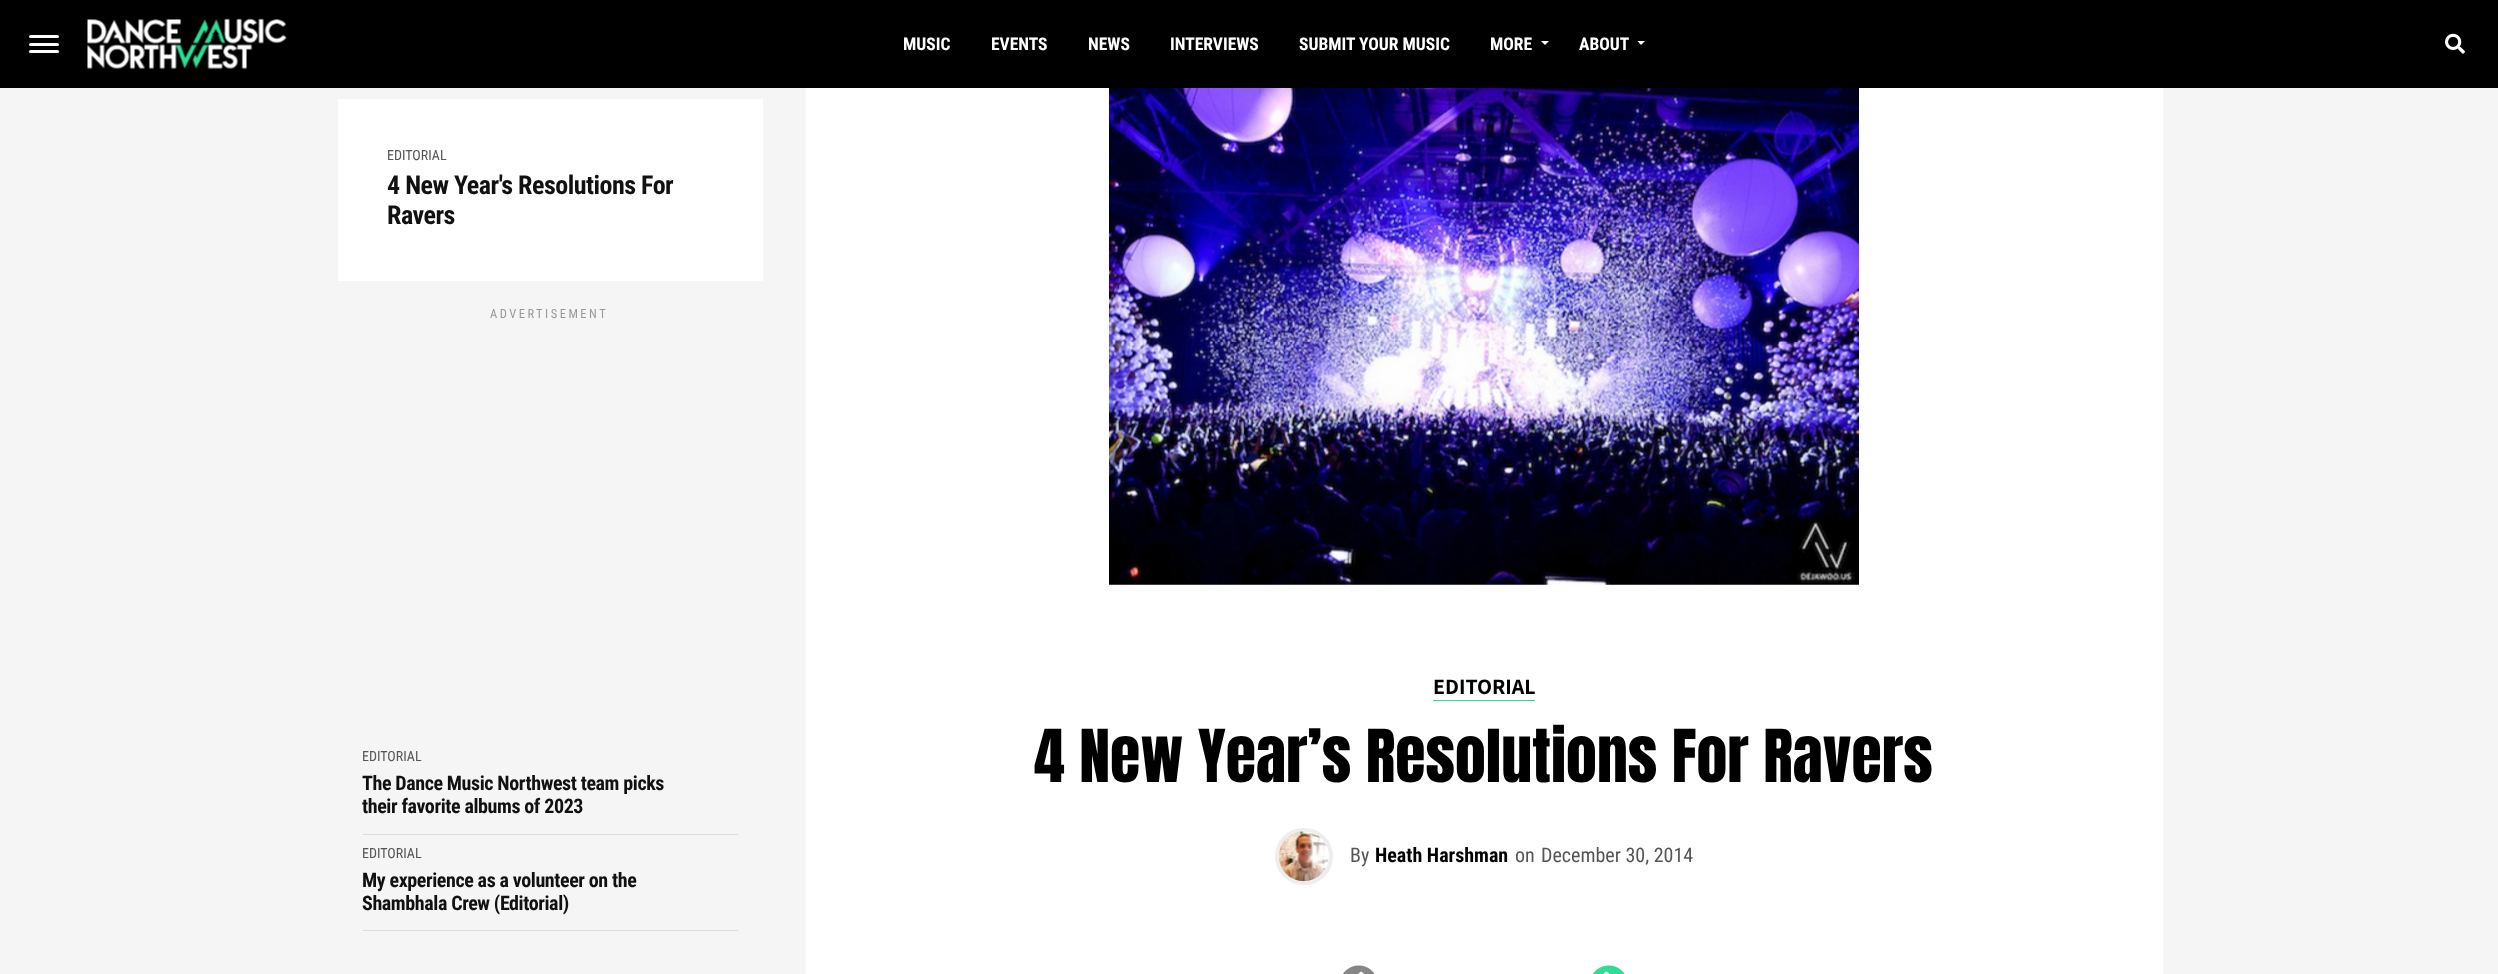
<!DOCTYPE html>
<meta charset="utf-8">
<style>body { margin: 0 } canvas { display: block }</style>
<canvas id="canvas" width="2498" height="974"></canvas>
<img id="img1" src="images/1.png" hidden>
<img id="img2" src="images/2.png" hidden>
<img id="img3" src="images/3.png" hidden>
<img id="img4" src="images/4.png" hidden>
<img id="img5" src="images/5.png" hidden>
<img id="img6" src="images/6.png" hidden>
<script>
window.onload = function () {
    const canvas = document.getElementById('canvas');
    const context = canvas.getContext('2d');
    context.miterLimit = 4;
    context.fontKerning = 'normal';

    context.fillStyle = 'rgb(245, 245, 245)';
    context.fillRect(0, 0, 2498, 974);
    context.fillStyle = 'rgb(0, 0, 0)';
    context.fillRect(0, 0, 2498, 88);
    context.fillStyle = 'rgb(255, 255, 255)';
    context.beginPath();
    context.roundRect(29, 35, 30, 3, 1.5);
    context.fill();
    context.beginPath();
    context.roundRect(29, 43, 30, 3, 1.5);
    context.fill();
    context.beginPath();
    context.roundRect(29, 50, 30, 3, 1.5);
    context.fill();
    context.drawImage(document.getElementById('img1'), 87, 18, 200, 52);
    context.beginPath();
    context.moveTo(1541, 41);
    context.lineTo(1549, 41);
    context.lineTo(1545, 45);
    context.closePath();
    context.fill();
    context.beginPath();
    context.moveTo(1637.5, 41);
    context.lineTo(1645, 41);
    context.lineTo(1641, 45);
    context.closePath();
    context.fill();
    context.drawImage(document.getElementById('img2'), 2445, 33, 20, 21);
    context.fillRect(338, 99, 425, 182);
    context.fillStyle = 'rgb(221, 221, 221)';
    context.fillRect(363, 834, 375, 1);
    context.fillRect(363, 930, 375, 1);
    context.fillStyle = 'rgb(255, 255, 255)';
    context.fillRect(806, 88, 1357, 886);
    context.drawImage(document.getElementById('img3'), 1109, 88, 750, 497);
    context.fillStyle = 'rgb(46, 222, 150)';
    context.fillRect(1433, 700, 102, 1);
    context.beginPath();
    context.roundRect(1277, 830, 54, 53, 26.5);
    context.strokeStyle = 'rgb(238, 238, 238)';
    context.lineWidth = 4;
    context.stroke();
    context.drawImage(document.getElementById('img4'), 1279, 831, 50, 51);
    context.drawImage(document.getElementById('img5'), 1343, 965, 32, 9);
    context.drawImage(document.getElementById('img6'), 1593, 965, 32, 9);
    context.font = 'bold 17.5px Roboto Condensed';
    context.fillStyle = 'rgb(255, 255, 255)';
    context.fillText('MUSIC', 903, 50);
    context.fillText('EVENTS', 991, 50);
    context.fillText('NEWS', 1088, 50);
    context.fillText('INTERVIEWS', 1170, 50);
    context.fillText('SUBMIT YOUR MUSIC', 1299, 50);
    context.fillText('MORE', 1490, 50);
    context.fillText('ABOUT', 1579, 50);
    context.font = '14px Roboto Condensed';
    context.fillStyle = 'rgb(85, 85, 85)';
    context.fillText('EDITORIAL', 387, 160);
    context.letterSpacing = '-0.5px';
    context.font = 'bold 26px Roboto Condensed';
    context.fillStyle = 'rgb(17, 17, 17)';
    context.fillText('4 New Year\'s Resolutions For', 387, 194);
    context.fillText('Ravers', 387, 224);
    context.letterSpacing = '2.5px';
    context.font = '12.5px Roboto Condensed';
    context.fillStyle = 'rgb(153, 153, 153)';
    context.fillText('ADVERTISEMENT', 490, 318);
    context.letterSpacing = '0px';
    context.font = '14px Roboto Condensed';
    context.fillStyle = 'rgb(85, 85, 85)';
    context.fillText('EDITORIAL', 362, 761);
    context.letterSpacing = '-0.4px';
    context.font = 'bold 20px Roboto Condensed';
    context.fillStyle = 'rgb(17, 17, 17)';
    context.fillText('The Dance Music Northwest team picks', 362, 790);
    context.fillText('their favorite albums of 2023', 362, 813);
    context.letterSpacing = '0px';
    context.font = '14px Roboto Condensed';
    context.fillStyle = 'rgb(85, 85, 85)';
    context.fillText('EDITORIAL', 362, 858);
    context.letterSpacing = '-0.4px';
    context.font = 'bold 20px Roboto Condensed';
    context.fillStyle = 'rgb(17, 17, 17)';
    context.fillText('My experience as a volunteer on the', 362, 887);
    context.fillText('Shambhala Crew (Editorial)', 362, 910);
    context.letterSpacing = '0px';
    context.font = 'bold 22px Assistant';
    context.fillStyle = 'rgb(0, 0, 0)';
    context.fillText('EDITORIAL', 1433, 694);
    context.font = '62px Anton';
    context.fillText('4 New Year’s Resolutions For Ravers', 1034, 782);
    context.font = '20px Roboto Condensed';
    context.fillStyle = 'rgb(85, 85, 85)';
    context.fillText('By', 1350, 862);
    context.font = 'bold 20px Roboto Condensed';
    context.fillStyle = 'rgb(0, 0, 0)';
    context.fillText('Heath Harshman', 1375, 862);
    context.font = '20px Roboto Condensed';
    context.fillStyle = 'rgb(85, 85, 85)';
    context.fillText('on', 1515, 862);
    context.fillText('December 30, 2014', 1541, 862);
};
</script>
